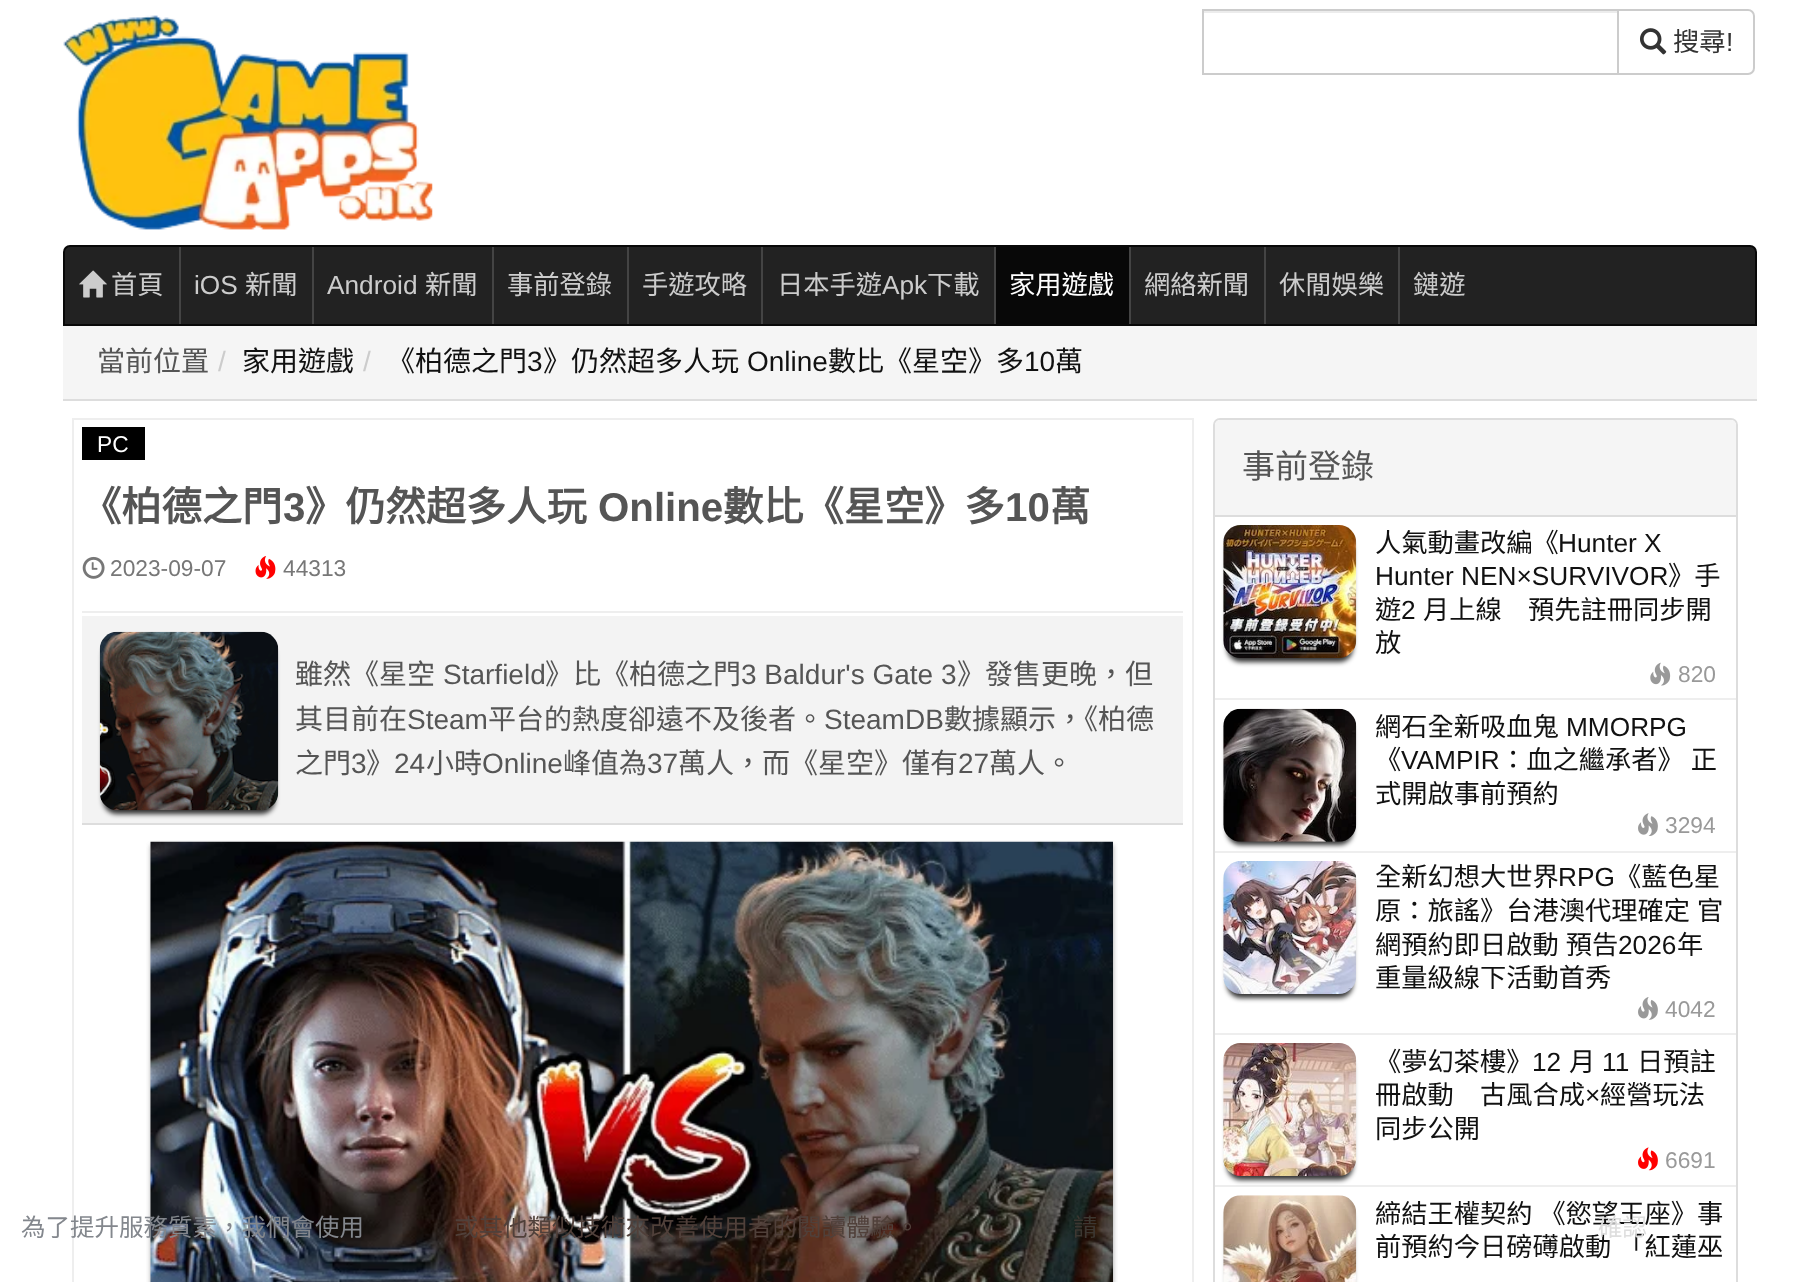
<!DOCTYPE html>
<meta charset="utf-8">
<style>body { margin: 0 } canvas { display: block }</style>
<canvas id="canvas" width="1817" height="1282"></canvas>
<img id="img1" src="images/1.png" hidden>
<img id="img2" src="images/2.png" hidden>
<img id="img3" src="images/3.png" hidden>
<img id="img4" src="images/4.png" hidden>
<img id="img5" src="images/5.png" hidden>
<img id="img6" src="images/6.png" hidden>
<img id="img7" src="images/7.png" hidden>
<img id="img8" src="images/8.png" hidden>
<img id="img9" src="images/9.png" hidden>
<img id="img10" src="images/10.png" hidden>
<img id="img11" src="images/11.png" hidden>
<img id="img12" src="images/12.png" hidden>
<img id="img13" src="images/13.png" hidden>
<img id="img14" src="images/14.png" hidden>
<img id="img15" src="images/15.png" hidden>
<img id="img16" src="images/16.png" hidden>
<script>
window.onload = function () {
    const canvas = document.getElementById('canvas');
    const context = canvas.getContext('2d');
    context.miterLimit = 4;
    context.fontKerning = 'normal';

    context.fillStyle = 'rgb(255, 255, 255)';
    context.fillRect(0, 0, 1817, 1282);
    context.drawImage(document.getElementById('img1'), 63, 15, 370, 215);
    context.fillStyle = 'rgb(236, 236, 236)';
    context.fillRect(1204, 11, 413, 2);
    context.strokeStyle = 'rgb(204, 204, 204)';
    context.lineWidth = 2;
    context.strokeRect(1203, 10, 415, 64);
    context.fillStyle = 'rgb(255, 255, 255)';
    context.beginPath();
    context.roundRect(1618, 10, 136, 64, [0, 6, 6, 0]);
    context.fill();
    context.stroke();
    context.drawImage(document.getElementById('img2'), 1640, 28, 27, 27);
    context.fillStyle = 'rgb(34, 34, 34)';
    context.beginPath();
    context.roundRect(64, 246, 1692, 79, [6, 6, 0, 0]);
    context.fill();
    context.strokeStyle = 'rgb(8, 8, 8)';
    context.stroke();
    context.drawImage(document.getElementById('img3'), 79, 270, 28, 28);
    context.fillStyle = 'rgb(68, 68, 68)';
    context.fillRect(179, 247, 2, 77);
    context.fillRect(312, 247, 2, 77);
    context.fillRect(492, 247, 2, 77);
    context.fillRect(627, 247, 2, 77);
    context.fillRect(761, 247, 2, 77);
    context.fillStyle = 'rgb(8, 8, 8)';
    context.fillRect(996, 247, 133, 77);
    context.fillStyle = 'rgb(68, 68, 68)';
    context.fillRect(994, 247, 2, 77);
    context.fillRect(1129, 247, 2, 77);
    context.fillRect(1264, 247, 2, 77);
    context.fillRect(1398, 247, 2, 77);
    context.fillStyle = 'rgb(245, 245, 245)';
    context.fillRect(63, 326, 1694, 73);
    context.fillStyle = 'rgb(221, 221, 221)';
    context.fillRect(63, 399, 1694, 2);
    context.strokeStyle = 'rgb(238, 238, 238)';
    context.strokeRect(73, 419, 1120, 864);
    context.fillStyle = 'rgb(0, 0, 0)';
    context.fillRect(82, 427, 63, 33);
    context.fillStyle = 'rgb(238, 238, 238)';
    context.fillRect(82, 611, 1101, 2);
    context.drawImage(document.getElementById('img4'), 82, 556, 23, 23);
    context.drawImage(document.getElementById('img5'), 255, 556, 21, 23);
    context.fillStyle = 'rgb(243, 243, 243)';
    context.fillRect(82, 616, 1101, 207);
    context.fillStyle = 'rgb(221, 221, 221)';
    context.fillRect(82, 823, 1101, 2);
    context.fillStyle = 'rgba(0, 0, 0, 0.8)';
    context.filter = 'blur(2.5px)';
    context.beginPath();
    context.roundRect(103, 642, 172, 172, 14);
    context.fill();
    context.filter = 'none';
    context.drawImage(document.getElementById('img6'), 99, 631, 180, 180);
    context.fillStyle = 'rgba(0, 0, 0, 0.19)';
    context.filter = 'blur(2.5px)';
    context.beginPath();
    context.rect(151, 845, 962, 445);
    context.fill();
    context.filter = 'none';
    context.fillStyle = 'rgba(0, 0, 0, 0.2)';
    context.filter = 'blur(2.5px)';
    context.beginPath();
    context.rect(151, 845, 962, 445);
    context.fill();
    context.filter = 'none';
    context.drawImage(document.getElementById('img7'), 150, 841, 963, 441);
    context.beginPath();
    context.roundRect(1214, 419, 523, 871, 6);
    context.strokeStyle = 'rgb(221, 221, 221)';
    context.stroke();
    context.fillStyle = 'rgb(245, 245, 245)';
    context.beginPath();
    context.roundRect(1215, 420, 521, 96, [5, 5, 0, 0]);
    context.fill();
    context.fillStyle = 'rgb(221, 221, 221)';
    context.fillRect(1215, 515, 521, 2);
    context.fillStyle = 'rgb(238, 238, 238)';
    context.fillRect(1215, 698, 521, 2);
    context.fillStyle = 'rgba(0, 0, 0, 0.8)';
    context.filter = 'blur(2.5px)';
    context.beginPath();
    context.roundRect(1227, 536, 126, 126, 14);
    context.fill();
    context.filter = 'none';
    context.drawImage(document.getElementById('img8'), 1223, 525, 134, 133);
    context.drawImage(document.getElementById('img9'), 1650, 662, 21, 24);
    context.fillStyle = 'rgb(238, 238, 238)';
    context.fillRect(1215, 851, 521, 2);
    context.fillStyle = 'rgba(0, 0, 0, 0.8)';
    context.filter = 'blur(2.5px)';
    context.beginPath();
    context.roundRect(1227, 719, 126, 126, 14);
    context.fill();
    context.filter = 'none';
    context.drawImage(document.getElementById('img10'), 1223, 708, 134, 134);
    context.drawImage(document.getElementById('img11'), 1638, 813, 20, 23);
    context.fillStyle = 'rgb(238, 238, 238)';
    context.fillRect(1215, 1033, 521, 2);
    context.fillStyle = 'rgba(0, 0, 0, 0.8)';
    context.filter = 'blur(2.5px)';
    context.beginPath();
    context.roundRect(1227, 872, 126, 126, 14);
    context.fill();
    context.filter = 'none';
    context.drawImage(document.getElementById('img12'), 1223, 861, 134, 133);
    context.drawImage(document.getElementById('img13'), 1638, 997, 20, 23);
    context.fillStyle = 'rgb(238, 238, 238)';
    context.fillRect(1215, 1185, 521, 2);
    context.fillStyle = 'rgba(0, 0, 0, 0.8)';
    context.filter = 'blur(2.5px)';
    context.beginPath();
    context.roundRect(1227, 1054, 126, 126, 14);
    context.fill();
    context.filter = 'none';
    context.drawImage(document.getElementById('img14'), 1223, 1043, 134, 133);
    context.drawImage(document.getElementById('img15'), 1638, 1147, 20, 24);
    context.filter = 'blur(2.5px)';
    context.beginPath();
    context.roundRect(1227, 1206, 126, 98, 14);
    context.fill();
    context.filter = 'none';
    context.drawImage(document.getElementById('img16'), 1223, 1195, 134, 87);
    context.font = '26.25px Noto Sans CJK HK';
    context.fillStyle = 'rgb(51, 51, 51)';
    context.fillText('搜尋', 1673, 51);
    context.font = '26.25px Liberation Sans';
    context.fillText('!', 1726, 51);
    context.font = '26.25px Noto Sans CJK HK';
    context.fillStyle = 'rgb(204, 204, 204)';
    context.fillText('首頁', 111, 294);
    context.font = '26.25px Liberation Sans';
    context.fillText('iOS', 194, 294);
    context.font = '26.25px Noto Sans CJK HK';
    context.fillText('新聞', 245, 294);
    context.font = '26.25px Liberation Sans';
    context.fillText('Android', 327, 294);
    context.font = '26.25px Noto Sans CJK HK';
    context.fillText('新聞', 425, 294);
    context.fillText('事前登錄', 507, 294);
    context.fillText('手遊攻略', 642, 294);
    context.fillText('日本手遊', 777, 294);
    context.font = '26.25px Liberation Sans';
    context.fillText('Apk', 882, 294);
    context.font = '26.25px Noto Sans CJK HK';
    context.fillText('下載', 927, 294);
    context.fillStyle = 'rgb(255, 255, 255)';
    context.fillText('家用遊戲', 1009, 294);
    context.fillStyle = 'rgb(204, 204, 204)';
    context.fillText('網絡新聞', 1144, 294);
    context.fillText('休閒娛樂', 1279, 294);
    context.fillText('鏈遊', 1413, 294);
    context.font = '28px Noto Sans CJK HK';
    context.fillStyle = 'rgb(85, 85, 85)';
    context.fillText('當前位置', 97, 371);
    context.font = '28px Liberation Sans';
    context.fillStyle = 'rgb(204, 204, 204)';
    context.fillText('/', 218, 371);
    context.font = '28px Noto Sans CJK HK';
    context.fillStyle = 'rgb(17, 17, 17)';
    context.fillText('家用遊戲', 242, 371);
    context.font = '28px Liberation Sans';
    context.fillStyle = 'rgb(204, 204, 204)';
    context.fillText('/', 363, 371);
    context.font = '28px Noto Sans CJK HK';
    context.fillStyle = 'rgb(17, 17, 17)';
    context.fillText('《柏德之門', 387, 371);
    context.font = '28px Liberation Sans';
    context.fillText('3', 527, 371);
    context.font = '28px Noto Sans CJK HK';
    context.fillText('》仍然超多人玩', 543, 371);
    context.font = '28px Liberation Sans';
    context.fillText('Online', 747, 371);
    context.font = '28px Noto Sans CJK HK';
    context.fillText('數比《星空》多', 828, 371);
    context.font = '28px Liberation Sans';
    context.fillText('10', 1024, 371);
    context.font = '28px Noto Sans CJK HK';
    context.fillText('萬', 1055, 371);
    context.font = '22.75px Liberation Sans';
    context.fillStyle = 'rgb(255, 255, 255)';
    context.fillText('PC', 97, 452);
    context.font = 'bold 40.25px Noto Sans CJK HK';
    context.fillStyle = 'rgb(85, 85, 85)';
    context.fillText('《柏德之門', 81, 521);
    context.font = 'bold 40.25px Liberation Sans';
    context.fillText('3', 283, 521);
    context.font = 'bold 40.25px Noto Sans CJK HK';
    context.fillText('》仍然超多人玩', 305, 521);
    context.font = 'bold 40.25px Liberation Sans';
    context.fillText('Online', 598, 521);
    context.font = 'bold 40.25px Noto Sans CJK HK';
    context.fillText('數比《星空》多', 723, 521);
    context.font = 'bold 40.25px Liberation Sans';
    context.fillText('10', 1005, 521);
    context.font = 'bold 40.25px Noto Sans CJK HK';
    context.fillText('萬', 1050, 521);
    context.font = '22.75px Liberation Sans';
    context.fillStyle = 'rgb(119, 119, 119)';
    context.fillText('2023-09-07', 110, 576);
    context.fillText('44313', 283, 576);
    context.font = '28px Noto Sans CJK HK';
    context.fillStyle = 'rgb(85, 85, 85)';
    context.fillText('雖然《星空', 295, 684);
    context.font = '28px Liberation Sans';
    context.fillText('Starfield', 443, 684);
    context.font = '28px Noto Sans CJK HK';
    context.fillText('》比《柏德之門', 545, 684);
    context.font = '28px Liberation Sans';
    context.fillText('3 Baldur\'s Gate 3', 741, 684);
    context.font = '28px Noto Sans CJK HK';
    context.fillText('》發售更晚，但', 957, 684);
    context.fillText('其目前在', 295, 729);
    context.font = '28px Liberation Sans';
    context.fillText('Steam', 407, 729);
    context.font = '28px Noto Sans CJK HK';
    context.fillText('平台的熱度卻遠不及後者。', 488, 729);
    context.font = '28px Liberation Sans';
    context.fillText('SteamDB', 824, 729);
    context.font = '28px Noto Sans CJK HK';
    context.fillText('數據顯示，《柏德', 944, 729);
    context.fillText('之門', 295, 773);
    context.font = '28px Liberation Sans';
    context.fillText('3', 351, 773);
    context.font = '28px Noto Sans CJK HK';
    context.fillText('》', 366, 773);
    context.font = '28px Liberation Sans';
    context.fillText('24', 394, 773);
    context.font = '28px Noto Sans CJK HK';
    context.fillText('小時', 426, 773);
    context.font = '28px Liberation Sans';
    context.fillText('Online', 482, 773);
    context.font = '28px Noto Sans CJK HK';
    context.fillText('峰值為', 563, 773);
    context.font = '28px Liberation Sans';
    context.fillText('37', 647, 773);
    context.font = '28px Noto Sans CJK HK';
    context.fillText('萬人，而《星空》僅有', 678, 773);
    context.font = '28px Liberation Sans';
    context.fillText('27', 958, 773);
    context.font = '28px Noto Sans CJK HK';
    context.fillText('萬人。', 989, 773);
    context.font = '33px Noto Sans CJK HK';
    context.fillText('事前登錄', 1242, 478);
    context.font = '26.25px Noto Sans CJK HK';
    context.fillStyle = 'rgb(17, 17, 17)';
    context.fillText('人氣動畫改編《', 1375, 552);
    context.font = '26.25px Liberation Sans';
    context.fillText('Hunter X', 1558, 552);
    context.fillText('Hunter NEN×SURVIVOR', 1375, 585);
    context.font = '26.25px Noto Sans CJK HK';
    context.fillText('》手', 1668, 585);
    context.fillText('遊', 1375, 619);
    context.font = '26.25px Liberation Sans';
    context.fillText('2', 1401, 619);
    context.font = '26.25px Noto Sans CJK HK';
    context.fillText('月上線　預先註冊同步開', 1423, 619);
    context.fillText('放', 1375, 652);
    context.font = '22.75px Liberation Sans';
    context.fillStyle = 'rgb(153, 153, 153)';
    context.fillText('820', 1678, 682);
    context.font = '26.25px Noto Sans CJK HK';
    context.fillStyle = 'rgb(17, 17, 17)';
    context.fillText('網石全新吸血鬼', 1375, 736);
    context.font = '26.25px Liberation Sans';
    context.fillText('MMORPG', 1566, 736);
    context.font = '26.25px Noto Sans CJK HK';
    context.fillText('《', 1375, 769);
    context.font = '26.25px Liberation Sans';
    context.fillText('VAMPIR', 1401, 769);
    context.wordSpacing = '1px';
    context.font = '26.25px Noto Sans CJK HK';
    context.fillText('：血之繼承者》 正', 1500, 769);
    context.wordSpacing = '0px';
    context.fillText('式開啟事前預約', 1375, 803);
    context.font = '22.75px Liberation Sans';
    context.fillStyle = 'rgb(153, 153, 153)';
    context.fillText('3294', 1665, 833);
    context.font = '26.25px Noto Sans CJK HK';
    context.fillStyle = 'rgb(17, 17, 17)';
    context.fillText('全新幻想大世界', 1375, 886);
    context.font = '26.25px Liberation Sans';
    context.fillText('RPG', 1558, 886);
    context.font = '26.25px Noto Sans CJK HK';
    context.fillText('《藍色星', 1615, 886);
    context.wordSpacing = '1px';
    context.fillText('原：旅謠》台港澳代理確定 官', 1375, 920);
    context.fillText('網預約即日啟動 預告', 1375, 954);
    context.wordSpacing = '0px';
    context.font = '26.25px Liberation Sans';
    context.fillText('2026', 1618, 954);
    context.font = '26.25px Noto Sans CJK HK';
    context.fillText('年', 1677, 954);
    context.fillText('重量級線下活動首秀', 1375, 987);
    context.font = '22.75px Liberation Sans';
    context.fillStyle = 'rgb(153, 153, 153)';
    context.fillText('4042', 1665, 1017);
    context.font = '26.25px Noto Sans CJK HK';
    context.fillStyle = 'rgb(17, 17, 17)';
    context.fillText('《夢幻茶樓》', 1375, 1071);
    context.font = '26.25px Liberation Sans';
    context.fillText('12', 1532, 1071);
    context.font = '26.25px Noto Sans CJK HK';
    context.fillText('月', 1569, 1071);
    context.font = '26.25px Liberation Sans';
    context.fillText('11', 1602, 1071);
    context.font = '26.25px Noto Sans CJK HK';
    context.fillText('日預註', 1637, 1071);
    context.fillText('冊啟動　古風合成', 1375, 1104);
    context.font = '26.25px Liberation Sans';
    context.fillText('×', 1585, 1104);
    context.font = '26.25px Noto Sans CJK HK';
    context.fillText('經營玩法', 1600, 1104);
    context.fillText('同步公開', 1375, 1138);
    context.font = '22.75px Liberation Sans';
    context.fillStyle = 'rgb(153, 153, 153)';
    context.fillText('6691', 1665, 1168);
    context.wordSpacing = '1px';
    context.font = '26.25px Noto Sans CJK HK';
    context.fillStyle = 'rgb(17, 17, 17)';
    context.fillText('締結王權契約 《慾望王座》事', 1375, 1223);
    context.fillText('前預約今日磅礡啟動 「紅蓮巫', 1375, 1256);
    context.wordSpacing = '0px';
    context.font = '24.5px Noto Sans CJK HK';
    context.fillStyle = 'rgb(131, 135, 141)';
    context.fillText('為了提升服務質素，我們會使用', 21, 1236);
    context.fillStyle = 'rgb(80, 64, 58)';
    context.fillText('或其他類似技術來改善使用者的閱讀體驗。', 454, 1236);
    context.fillStyle = 'rgb(60, 55, 49)';
    context.fillText('請', 1073, 1236);
    context.fillStyle = 'rgb(222, 222, 222)';
    context.fillText('確認', 1598, 1236);
};
</script>
